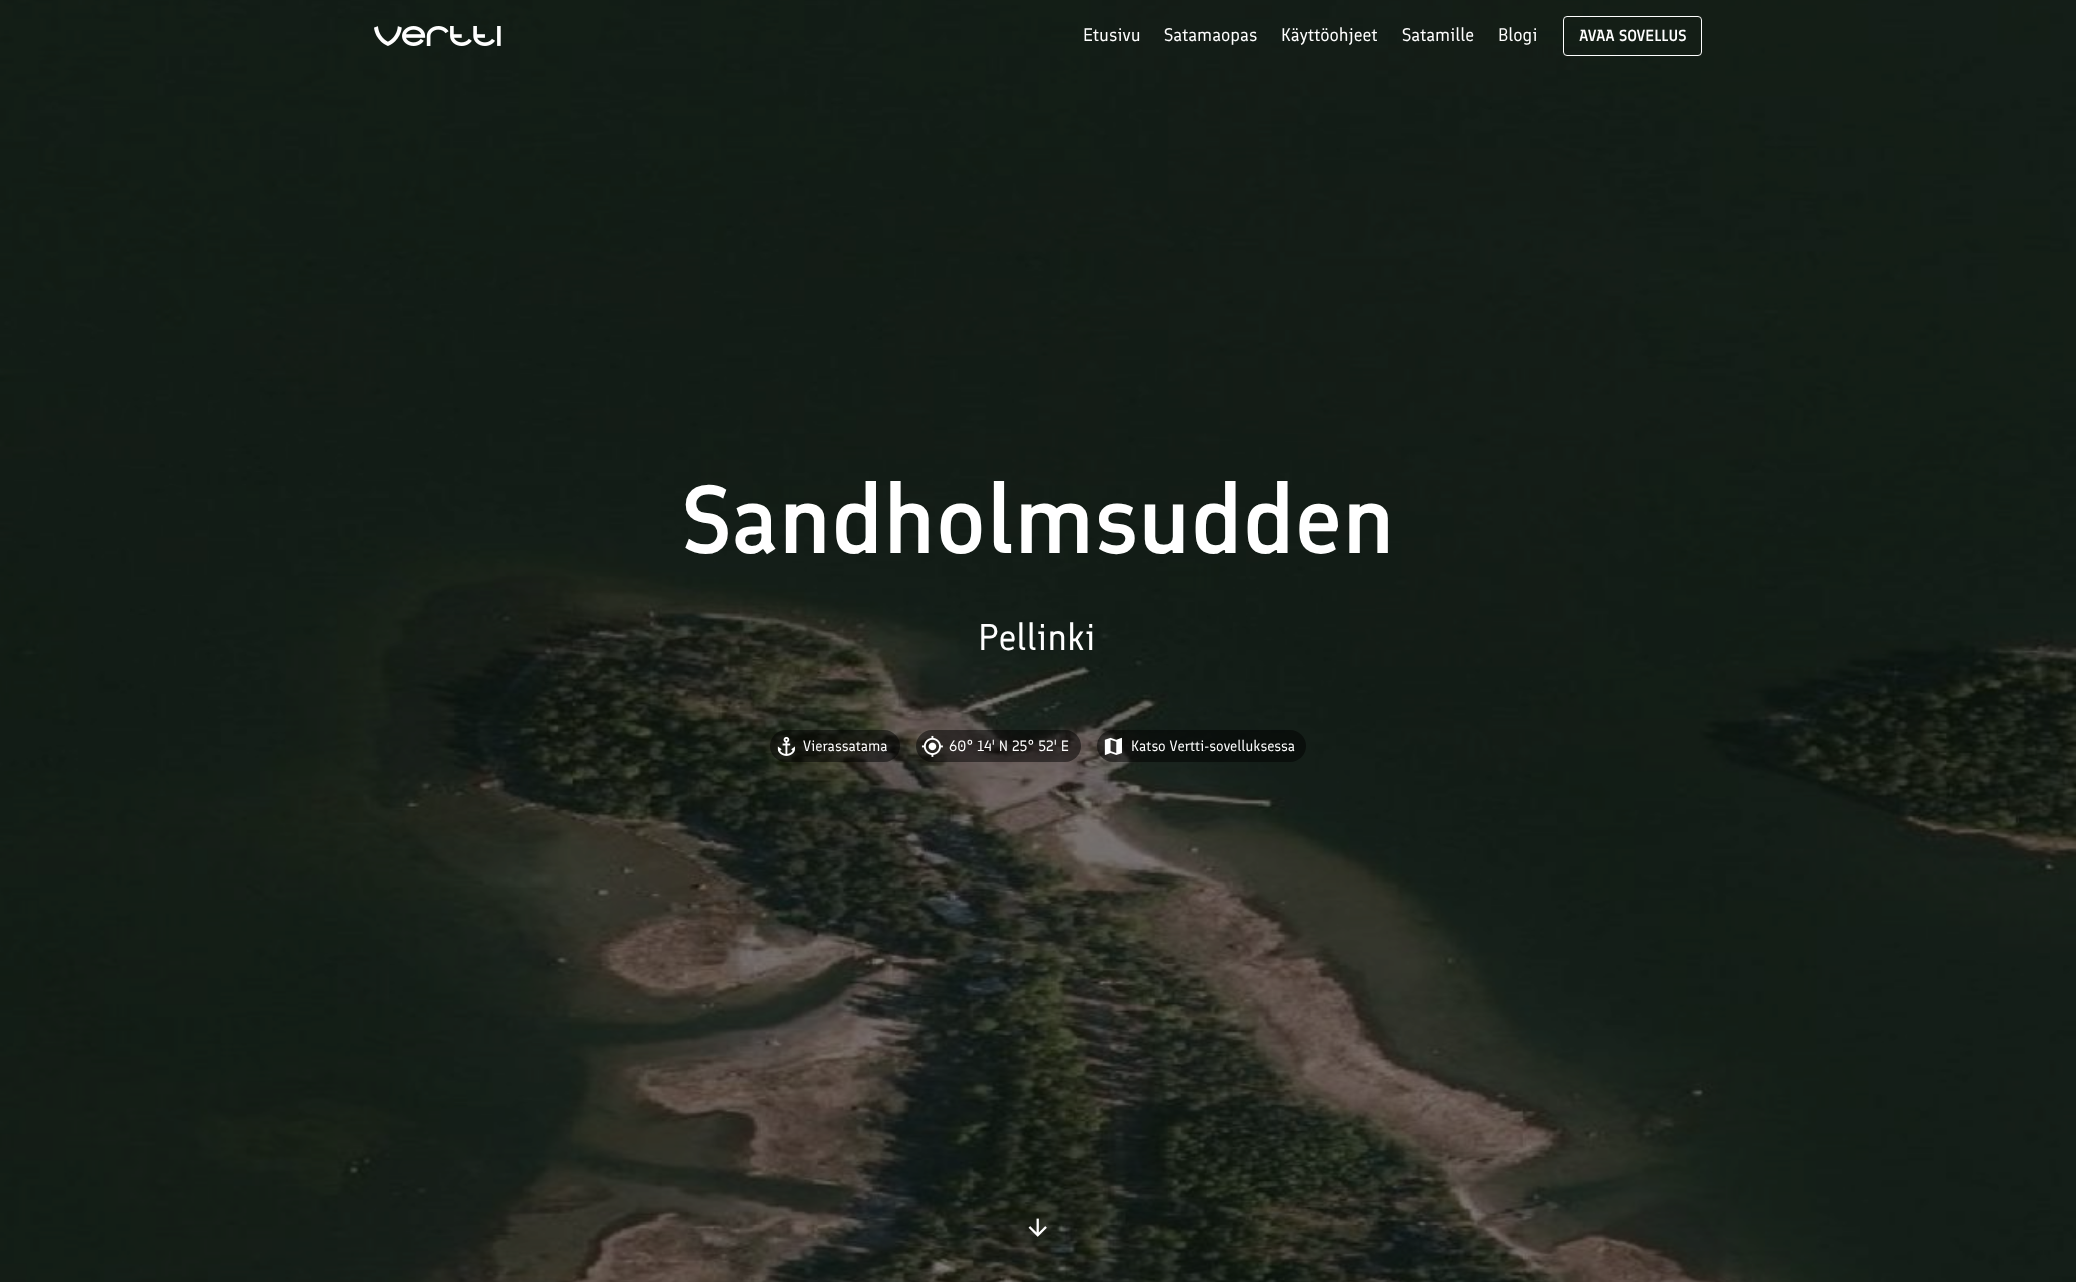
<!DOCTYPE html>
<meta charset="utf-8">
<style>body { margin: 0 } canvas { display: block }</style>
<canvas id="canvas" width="2076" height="1282"></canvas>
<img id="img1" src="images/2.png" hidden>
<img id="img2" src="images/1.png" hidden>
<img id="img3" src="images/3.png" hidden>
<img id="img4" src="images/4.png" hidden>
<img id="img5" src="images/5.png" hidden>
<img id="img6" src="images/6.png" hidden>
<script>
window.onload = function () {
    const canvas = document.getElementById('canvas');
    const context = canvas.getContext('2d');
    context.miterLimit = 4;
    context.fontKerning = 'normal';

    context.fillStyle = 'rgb(255, 255, 255)';
    context.fillRect(0, 0, 2076, 1282);
    context.drawImage(document.getElementById('img1'), 0, 0, 2076, 1282);
    context.drawImage(document.getElementById('img2'), 374, 26, 127, 20);
    context.beginPath();
    context.roundRect(1563.5, 16.5, 138, 39, 3.5);
    context.strokeStyle = 'rgb(255, 255, 255)';
    context.stroke();
    context.fillStyle = 'rgba(0, 0, 0, 0.5)';
    context.beginPath();
    context.roundRect(770, 730, 130, 32, 16);
    context.fill();
    context.drawImage(document.getElementById('img3'), 777, 736, 18, 20);
    context.beginPath();
    context.roundRect(916, 730, 165, 32, 16);
    context.fill();
    context.drawImage(document.getElementById('img4'), 921, 735, 22, 22);
    context.beginPath();
    context.roundRect(1097, 730, 209, 32, 16);
    context.fill();
    context.drawImage(document.getElementById('img5'), 1104, 737, 18, 18);
    context.drawImage(document.getElementById('img6'), 1028, 1218, 19, 19);
    context.font = '18.25px Finlandica';
    context.fillStyle = 'rgb(255, 255, 255)';
    context.fillText('Etusivu', 1083, 41);
    context.fillText('Satamaopas', 1164, 41);
    context.fillText('Käyttöohjeet', 1281, 41);
    context.fillText('Satamille', 1402, 41);
    context.fillText('Blogi', 1498, 41);
    context.font = '500 16px Finlandica';
    context.fillText('AVAA SOVELLUS', 1579, 41);
    context.font = '500 96px Finlandica';
    context.fillText('Sandholmsudden', 682, 553);
    context.font = '37px Finlandica';
    context.fillText('Pellinki', 978, 650);
    context.font = '14.9px Finlandica';
    context.fillText('Vierassatama', 803, 751);
    context.fillText('60° 14\' N 25° 52\' E', 949, 751);
    context.fillText('Katso Vertti-sovelluksessa', 1131, 751);
};
</script>
